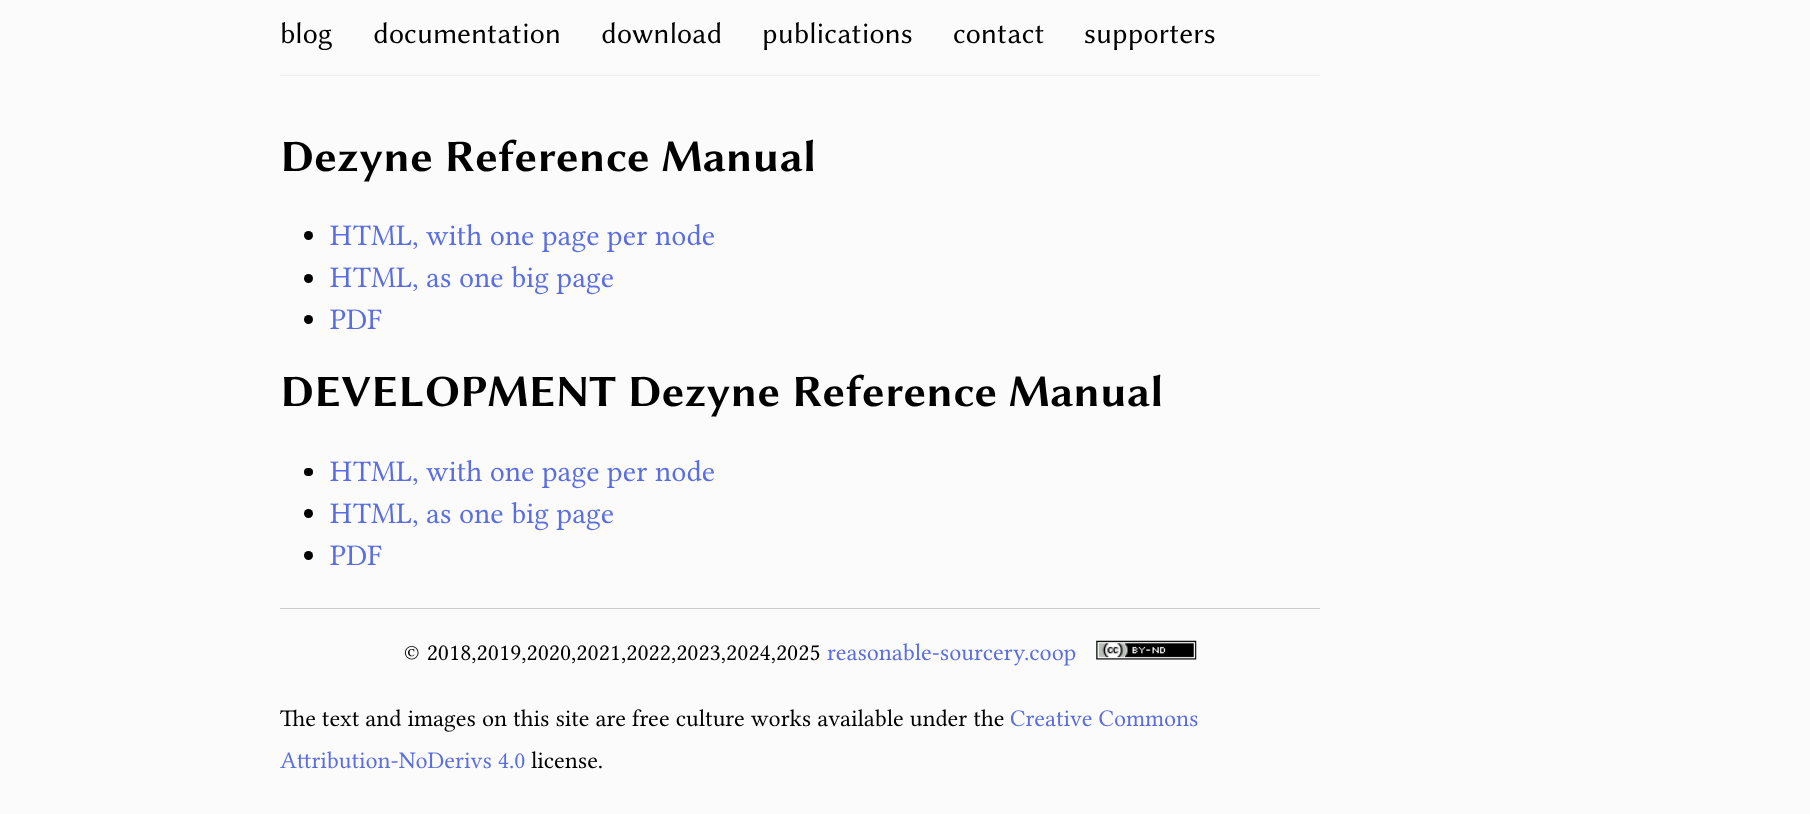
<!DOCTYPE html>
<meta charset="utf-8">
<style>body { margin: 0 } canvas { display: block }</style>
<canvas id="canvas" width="1810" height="814"></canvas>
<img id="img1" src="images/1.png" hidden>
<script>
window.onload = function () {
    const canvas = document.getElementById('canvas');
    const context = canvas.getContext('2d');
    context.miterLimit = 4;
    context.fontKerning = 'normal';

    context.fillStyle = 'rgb(251, 251, 251)';
    context.fillRect(0, 0, 1810, 814);
    context.fillStyle = 'rgb(238, 238, 238)';
    context.fillRect(280, 75, 1040, 1);
    context.fillStyle = 'rgb(0, 0, 0)';
    context.beginPath();
    context.arc(308.5, 235.5, 4.5, 0, 2 * Math.PI);
    context.fill();
    context.beginPath();
    context.arc(308.5, 278.5, 4.5, 0, 2 * Math.PI);
    context.fill();
    context.beginPath();
    context.arc(308.5, 319.5, 4.5, 0, 2 * Math.PI);
    context.fill();
    context.beginPath();
    context.roundRect(304, 468, 9, 8, 4);
    context.fill();
    context.beginPath();
    context.arc(308.5, 513.5, 4.5, 0, 2 * Math.PI);
    context.fill();
    context.beginPath();
    context.arc(308.5, 555.5, 4.5, 0, 2 * Math.PI);
    context.fill();
    context.fillStyle = 'rgb(204, 204, 204)';
    context.fillRect(280, 608, 1040, 1);
    context.drawImage(document.getElementById('img1'), 1096, 640, 101, 20);
    context.font = '30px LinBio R';
    context.fillStyle = 'rgb(0, 0, 0)';
    context.fillText('blog', 280, 43);
    context.fillText('documentation', 373, 43);
    context.fillText('download', 601, 43);
    context.fillText('publications', 762, 43);
    context.fillText('contact', 953, 43);
    context.fillText('supporters', 1084, 43);
    context.font = 'bold 45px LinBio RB';
    context.fillText('Dezyne Reference Manual', 280, 171);
    context.font = '30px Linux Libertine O';
    context.fillStyle = 'rgb(91, 110, 225)';
    context.fillText('HTML, with one page per node', 330, 245);
    context.fillText('HTML, as one big page', 330, 287);
    context.fillText('PDF', 330, 329);
    context.font = 'bold 45px LinBio RB';
    context.fillStyle = 'rgb(0, 0, 0)';
    context.fillText('DEVELOPMENT Dezyne Reference Manual', 280, 406);
    context.font = '30px Linux Libertine O';
    context.fillStyle = 'rgb(91, 110, 225)';
    context.fillText('HTML, with one page per node', 330, 481);
    context.fillText('HTML, as one big page', 330, 523);
    context.fillText('PDF', 330, 565);
    context.font = '24px Linux Libertine O';
    context.fillStyle = 'rgb(0, 0, 0)';
    context.fillText('© 2018,2019,2020,2021,2022,2023,2024,2025', 404, 660);
    context.fillStyle = 'rgb(91, 110, 225)';
    context.fillText('reasonable-sourcery.coop', 827, 660);
    context.fillStyle = 'rgb(0, 0, 0)';
    context.fillText('The text and images on this site are free culture works available under the', 280, 726);
    context.fillStyle = 'rgb(91, 110, 225)';
    context.fillText('Creative Commons', 1010, 726);
    context.fillText('Attribution-NoDerivs 4.0', 280, 768);
    context.fillStyle = 'rgb(0, 0, 0)';
    context.fillText('license.', 531, 768);
};
</script>
